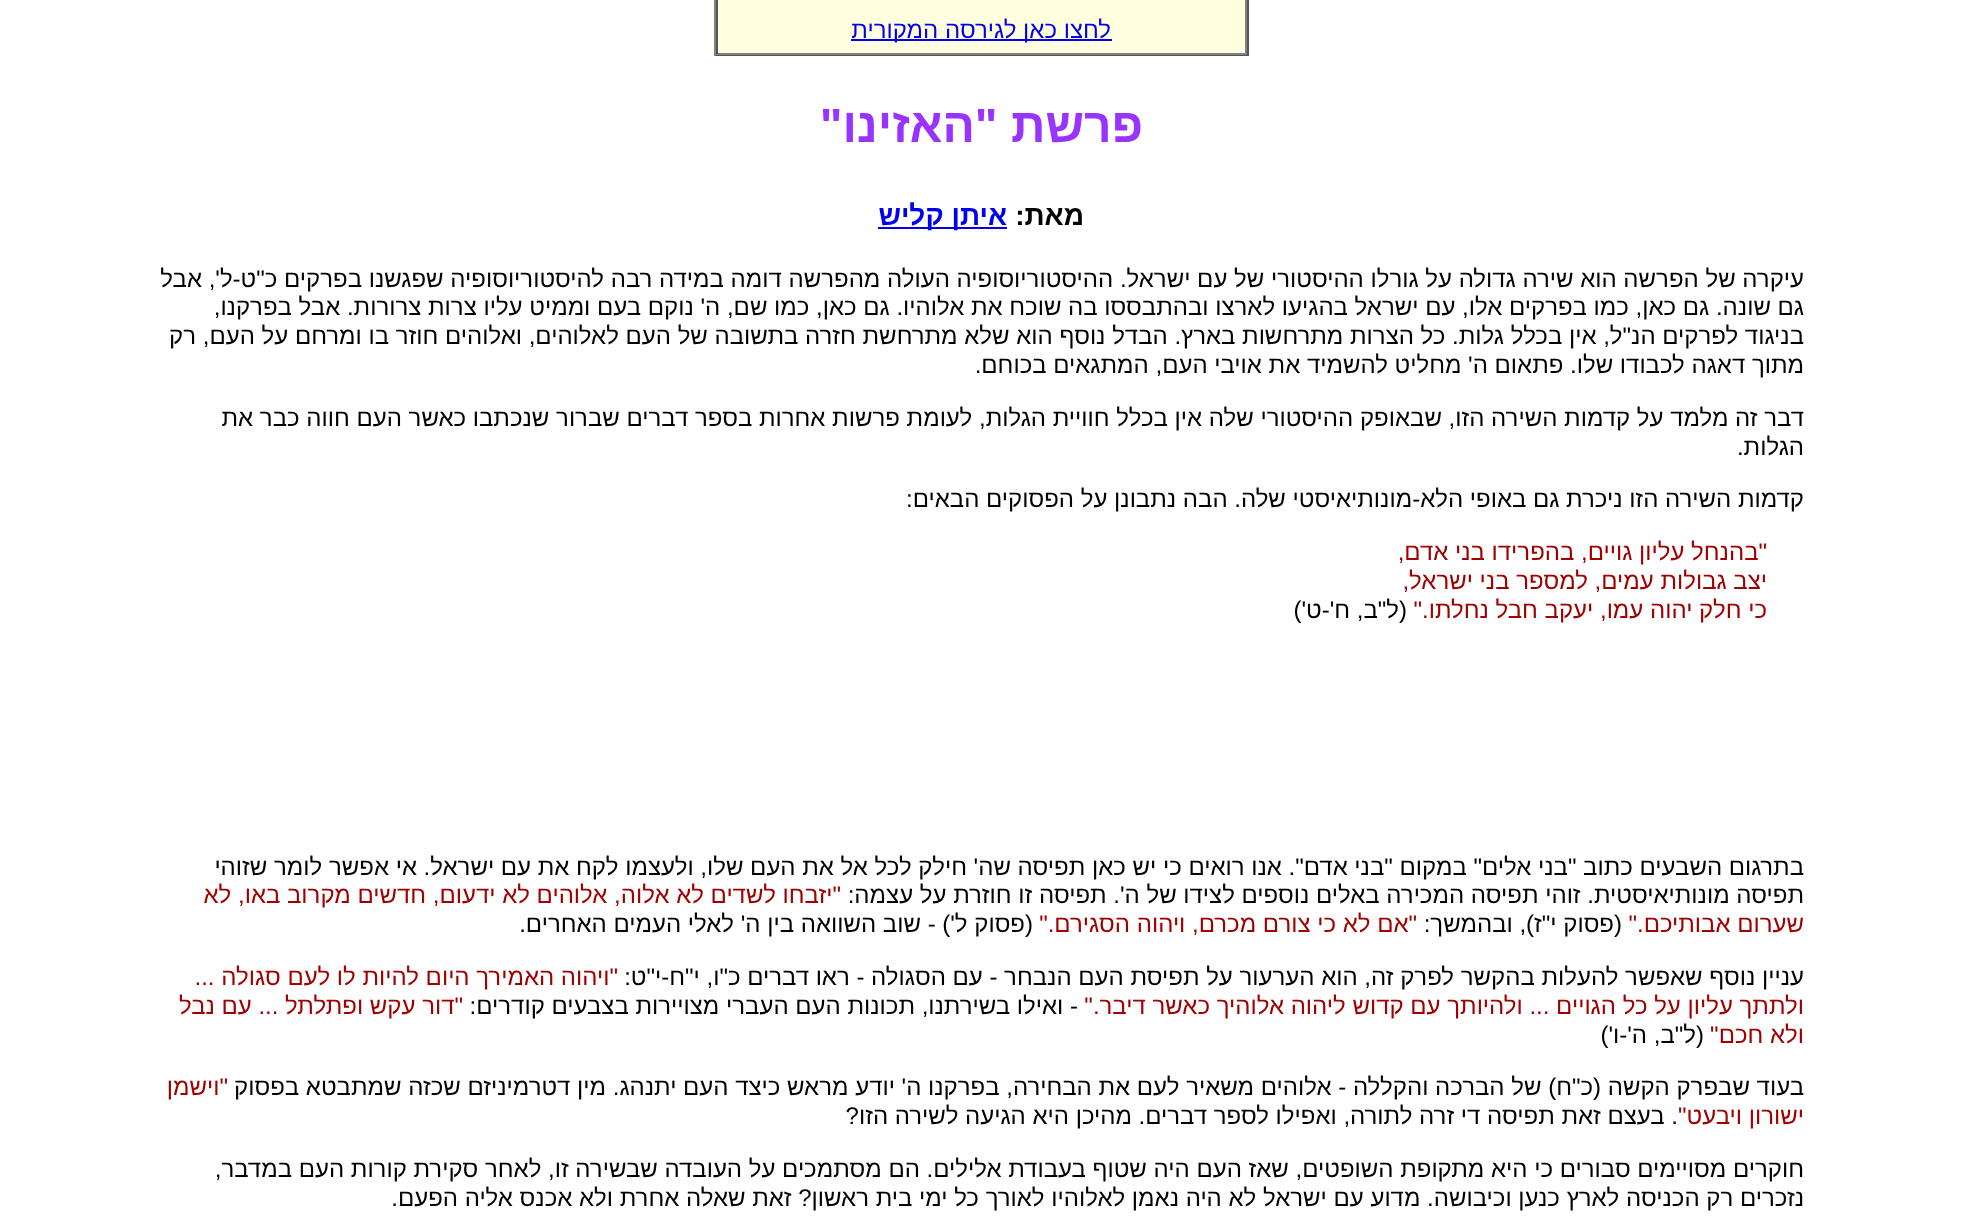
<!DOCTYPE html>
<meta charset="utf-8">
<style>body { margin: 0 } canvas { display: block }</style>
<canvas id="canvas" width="1962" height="1220"></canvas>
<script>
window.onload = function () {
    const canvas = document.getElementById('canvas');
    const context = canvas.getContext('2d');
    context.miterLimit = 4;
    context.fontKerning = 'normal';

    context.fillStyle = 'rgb(255, 255, 255)';
    context.fillRect(0, 0, 1962, 1220);
    context.fillStyle = 'rgb(85, 85, 85)';
    context.fillRect(1247, 0, 2, 56);
    context.fillRect(714, 54, 534, 2);
    context.fillStyle = 'rgb(128, 128, 128)';
    context.fillRect(714, 0, 2, 56);
    context.fillStyle = 'rgb(255, 255, 224)';
    context.fillRect(718, 0, 527, 53);
    context.fillStyle = 'rgb(128, 128, 128)';
    context.fillRect(1245, 0, 2, 54);
    context.fillRect(716, 53, 531, 2);
    context.fillStyle = 'rgb(85, 85, 85)';
    context.fillRect(716, 0, 2, 54);
    context.fillStyle = 'rgb(0, 0, 238)';
    context.fillRect(851, 39, 261, 2);
    context.fillRect(878, 227, 129, 2);
    context.direction = 'rtl';
    context.font = '24px Liberation Sans';
    context.fillText('לחצו כאן לגירסה המקורית', 1111, 38);
    context.font = 'bold 48px Liberation Sans';
    context.fillStyle = 'rgb(153, 51, 255)';
    context.fillText('פרשת "האזינו"', 1143, 142);
    context.font = 'bold 28px Liberation Sans';
    context.fillStyle = 'rgb(0, 0, 0)';
    context.fillText('מאת:', 1084, 225);
    context.fillStyle = 'rgb(0, 0, 238)';
    context.fillText('איתן קליש', 1007, 225);
    context.font = '24px Liberation Sans';
    context.fillStyle = 'rgb(0, 0, 0)';
    context.fillText('עיקרה של הפרשה הוא שירה גדולה על גורלו ההיסטורי של עם ישראל. ההיסטוריוסופיה העולה מהפרשה דומה במידה רבה להיסטוריוסופיה שפגשנו בפרקים כ"ט-ל\', אבל', 1804, 287);
    context.fillText('גם שונה. גם כאן, כמו בפרקים אלו, עם ישראל בהגיעו לארצו ובהתבססו בה שוכח את אלוהיו. גם כאן, כמו שם, ה\' נוקם בעם וממיט עליו צרות צרורות. אבל בפרקנו,', 1804, 315);
    context.fillText('בניגוד לפרקים הנ"ל, אין בכלל גלות. כל הצרות מתרחשות בארץ. הבדל נוסף הוא שלא מתרחשת חזרה בתשובה של העם לאלוהים, ואלוהים חוזר בו ומרחם על העם, רק', 1804, 344);
    context.fillText('מתוך דאגה לכבודו שלו. פתאום ה\' מחליט להשמיד את אויבי העם, המתגאים בכוחם.', 1804, 373);
    context.fillText('דבר זה מלמד על קדמות השירה הזו, שבאופק ההיסטורי שלה אין בכלל חוויית הגלות, לעומת פרשות אחרות בספר דברים שברור שנכתבו כאשר העם חווה כבר את', 1804, 426);
    context.fillText('הגלות.', 1804, 455);
    context.fillText('קדמות השירה הזו ניכרת גם באופי הלא-מונותיאיסטי שלה. הבה נתבונן על הפסוקים הבאים:', 1804, 507);
    context.fillStyle = 'rgb(160, 0, 0)';
    context.fillText('"בהנחל עליון גויים, בהפרידו בני אדם,', 1767, 560);
    context.fillText('יצב גבולות עמים, למספר בני ישראל,', 1767, 589);
    context.fillText('כי חלק יהוה עמו, יעקב חבל נחלתו."', 1767, 618);
    context.fillStyle = 'rgb(0, 0, 0)';
    context.fillText('(ל"ב, ח\'-ט\')', 1407, 618);
    context.fillText('בתרגום השבעים כתוב "בני אלים" במקום "בני אדם". אנו רואים כי יש כאן תפיסה שה\' חילק לכל אל את העם שלו, ולעצמו לקח את עם ישראל. אי אפשר לומר שזוהי', 1804, 875);
    context.fillText('תפיסה מונותיאיסטית. זוהי תפיסה המכירה באלים נוספים לצידו של ה\'. תפיסה זו חוזרת על עצמה:', 1804, 903);
    context.fillStyle = 'rgb(160, 0, 0)';
    context.fillText('"יזבחו לשדים לא אלוה, אלוהים לא ידעום, חדשים מקרוב באו, לא', 841, 903);
    context.fillText('שערום אבותיכם."', 1804, 932);
    context.fillStyle = 'rgb(0, 0, 0)';
    context.fillText('(פסוק י"ז), ובהמשך:', 1622, 932);
    context.fillStyle = 'rgb(160, 0, 0)';
    context.fillText('"אם לא כי צורם מכרם, ויהוה הסגירם."', 1417, 932);
    context.fillStyle = 'rgb(0, 0, 0)';
    context.fillText('(פסוק ל\') - שוב השוואה בין ה\' לאלי העמים האחרים.', 1033, 932);
    context.fillText('עניין נוסף שאפשר להעלות בהקשר לפרק זה, הוא הערעור על תפיסת העם הנבחר - עם הסגולה - ראו דברים כ"ו, י"ח-י"ט:', 1804, 985);
    context.fillStyle = 'rgb(160, 0, 0)';
    context.fillText('"ויהוה האמירך היום להיות לו לעם סגולה ...', 618, 985);
    context.fillText('ולתתך עליון על כל הגויים ... ולהיותך עם קדוש ליהוה אלוהיך כאשר דיבר."', 1804, 1014);
    context.fillStyle = 'rgb(0, 0, 0)';
    context.fillText('- ואילו בשירתנו, תכונות העם העברי מצויירות בצבעים קודרים:', 1078, 1014);
    context.fillStyle = 'rgb(160, 0, 0)';
    context.fillText('"דור עקש ופתלתל ... עם נבל', 463, 1014);
    context.fillText('ולא חכם"', 1804, 1043);
    context.fillStyle = 'rgb(0, 0, 0)';
    context.fillText('(ל"ב, ה\'-ו\')', 1704, 1043);
    context.fillText('בעוד שבפרק הקשה (כ"ח) של הברכה והקללה - אלוהים משאיר לעם את הבחירה, בפרקנו ה\' יודע מראש כיצד העם יתנהג. מין דטרמיניזם שכזה שמתבטא בפסוק', 1804, 1095);
    context.fillStyle = 'rgb(160, 0, 0)';
    context.fillText('"וישמן', 228, 1095);
    context.fillText('ישורון ויבעט"', 1804, 1124);
    context.fillStyle = 'rgb(0, 0, 0)';
    context.fillText('. בעצם זאת תפיסה די זרה לתורה, ואפילו לספר דברים. מהיכן היא הגיעה לשירה הזו?', 1678, 1124);
    context.fillText('חוקרים מסויימים סבורים כי היא מתקופת השופטים, שאז העם היה שטוף בעבודת אלילים. הם מסתמכים על העובדה שבשירה זו, לאחר סקירת קורות העם במדבר,', 1804, 1177);
    context.fillText('נזכרים רק הכניסה לארץ כנען וכיבושה. מדוע עם ישראל לא היה נאמן לאלוהיו לאורך כל ימי בית ראשון? זאת שאלה אחרת ולא אכנס אליה הפעם.', 1804, 1206);
};
</script>
